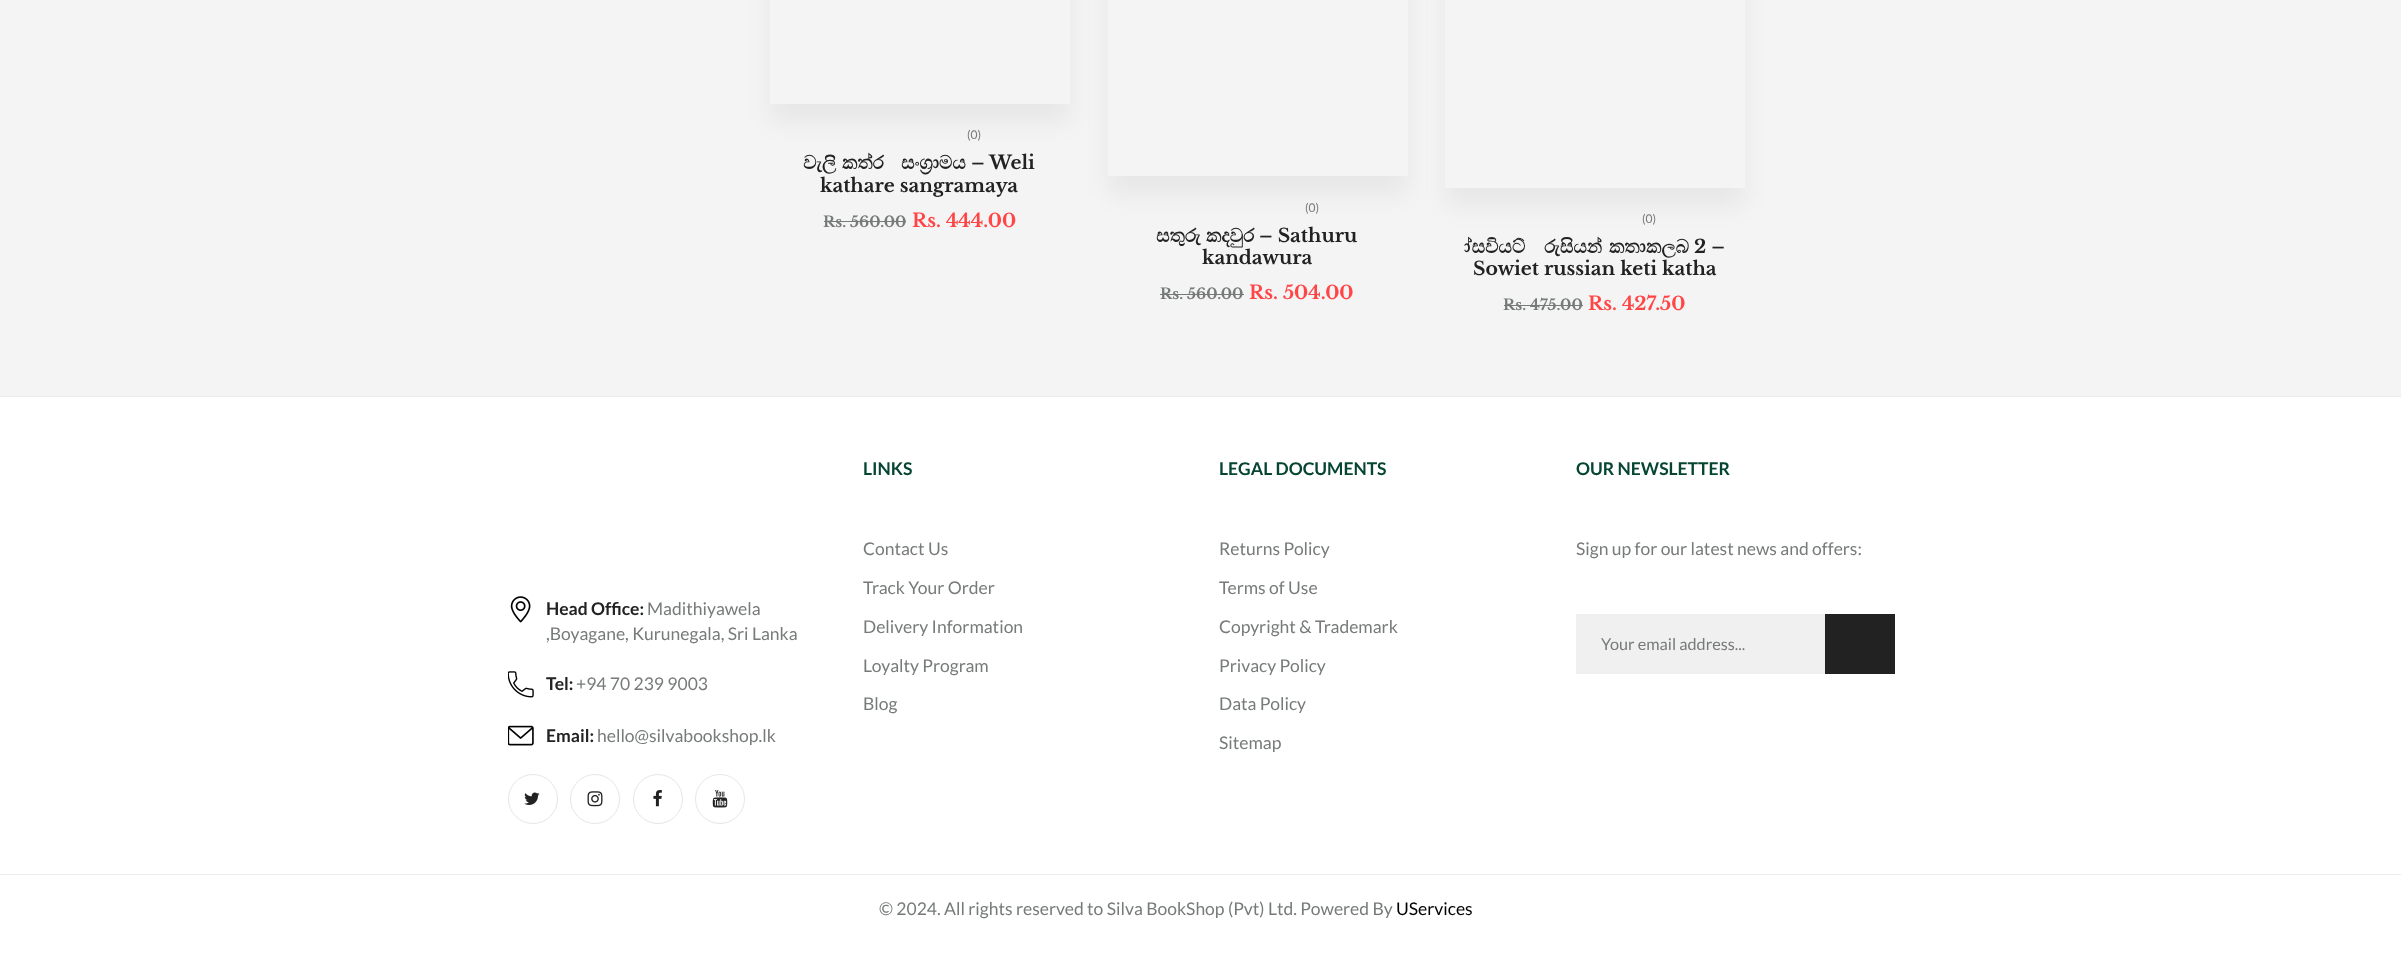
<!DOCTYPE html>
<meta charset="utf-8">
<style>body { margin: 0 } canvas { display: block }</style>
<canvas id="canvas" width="2401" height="960"></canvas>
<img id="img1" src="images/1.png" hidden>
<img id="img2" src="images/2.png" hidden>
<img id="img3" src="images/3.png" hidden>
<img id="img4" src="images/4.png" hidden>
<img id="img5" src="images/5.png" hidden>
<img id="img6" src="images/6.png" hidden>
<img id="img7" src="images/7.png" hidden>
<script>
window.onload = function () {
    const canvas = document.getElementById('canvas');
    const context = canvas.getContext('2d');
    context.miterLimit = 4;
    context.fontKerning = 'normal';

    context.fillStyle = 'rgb(255, 255, 255)';
    context.fillRect(0, 0, 2401, 960);
    context.fillStyle = 'rgb(244, 244, 244)';
    context.fillRect(0, 0, 2401, 396);
    context.save();
    context.beginPath();
    context.moveTo(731, 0);
    context.lineTo(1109, 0);
    context.lineTo(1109, 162);
    context.lineTo(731, 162);
    context.closePath();
    context.moveTo(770, -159);
    context.lineTo(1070, -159);
    context.lineTo(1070, 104);
    context.lineTo(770, 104);
    context.closePath();
    context.clip('evenodd');
    context.fillStyle = 'rgba(0, 0, 0, 0.05)';
    context.filter = 'blur(12.5px)';
    context.beginPath();
    context.rect(770, -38, 300, 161);
    context.fill();
    context.filter = 'none';
    context.restore();
    context.fillStyle = 'rgb(118, 122, 121)';
    context.fillRect(824, 221, 82, 1);
    context.save();
    context.beginPath();
    context.moveTo(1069, 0);
    context.lineTo(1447, 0);
    context.lineTo(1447, 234);
    context.lineTo(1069, 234);
    context.closePath();
    context.moveTo(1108, -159);
    context.lineTo(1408, -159);
    context.lineTo(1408, 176);
    context.lineTo(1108, 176);
    context.closePath();
    context.clip('evenodd');
    context.fillStyle = 'rgba(0, 0, 0, 0.05)';
    context.filter = 'blur(12.5px)';
    context.beginPath();
    context.rect(1108, -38, 300, 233);
    context.fill();
    context.filter = 'none';
    context.restore();
    context.fillRect(1160, 294, 84, 1);
    context.save();
    context.beginPath();
    context.moveTo(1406, 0);
    context.lineTo(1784, 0);
    context.lineTo(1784, 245);
    context.lineTo(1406, 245);
    context.closePath();
    context.moveTo(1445, -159);
    context.lineTo(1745, -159);
    context.lineTo(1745, 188);
    context.lineTo(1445, 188);
    context.closePath();
    context.clip('evenodd');
    context.fillStyle = 'rgba(0, 0, 0, 0.05)';
    context.filter = 'blur(12.5px)';
    context.beginPath();
    context.rect(1445, -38, 300, 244);
    context.fill();
    context.filter = 'none';
    context.restore();
    context.fillRect(1504, 305, 79, 1);
    context.fillStyle = 'rgb(237, 237, 237)';
    context.fillRect(0, 396, 2401, 1);
    context.fillRect(0, 874, 2401, 1);
    context.fillStyle = 'rgb(240, 240, 240)';
    context.fillRect(1576, 614, 249, 60);
    context.fillStyle = 'rgb(34, 34, 34)';
    context.fillRect(1825, 614, 70, 60);
    context.drawImage(document.getElementById('img1'), 510, 596, 21, 27);
    context.drawImage(document.getElementById('img2'), 508, 671, 26, 27);
    context.drawImage(document.getElementById('img3'), 508, 725, 26, 21);
    context.beginPath();
    context.arc(533, 799, 24.5, 0, 2 * Math.PI);
    context.strokeStyle = 'rgb(230, 230, 230)';
    context.stroke();
    context.drawImage(document.getElementById('img4'), 524, 792, 16, 13);
    context.beginPath();
    context.arc(595, 799, 24.5, 0, 2 * Math.PI);
    context.stroke();
    context.drawImage(document.getElementById('img5'), 587, 791, 16, 16);
    context.beginPath();
    context.arc(658, 799, 24.5, 0, 2 * Math.PI);
    context.stroke();
    context.drawImage(document.getElementById('img6'), 653, 790, 9, 17);
    context.beginPath();
    context.arc(720, 799, 24.5, 0, 2 * Math.PI);
    context.stroke();
    context.drawImage(document.getElementById('img7'), 712, 790, 16, 18);
    context.font = '12px Lato';
    context.fillStyle = 'rgb(118, 122, 121)';
    context.fillText('(0)', 967, 139);
    context.font = 'bold 18.75px FreeSerif';
    context.fillStyle = 'rgb(34, 34, 34)';
    context.fillText('වැලි', 803, 169);
    context.fillText('කතරේ', 842, 169);
    context.fillText('සංග්‍රාමය', 901, 169);
    context.font = 'bold 18.75px Libre Baskerville';
    context.fillText('– Weli', 971, 169);
    context.fillText('kathare sangramaya', 820, 192);
    context.font = 'bold 15px Libre Baskerville';
    context.fillStyle = 'rgb(118, 122, 121)';
    context.fillText('Rs. 560.00', 823, 227);
    context.font = 'bold 18.75px Libre Baskerville';
    context.fillStyle = 'rgb(255, 69, 69)';
    context.fillText('Rs. 444.00', 912, 227);
    context.font = '12px Lato';
    context.fillStyle = 'rgb(118, 122, 121)';
    context.fillText('(0)', 1305, 212);
    context.font = 'bold 18.75px FreeSerif';
    context.fillStyle = 'rgb(34, 34, 34)';
    context.fillText('සතුරු', 1156, 242);
    context.fillText('කදවුර', 1206, 242);
    context.font = 'bold 18.75px Libre Baskerville';
    context.fillText('– Sathuru', 1259, 242);
    context.fillText('kandawura', 1202, 264);
    context.font = 'bold 15px Libre Baskerville';
    context.fillStyle = 'rgb(118, 122, 121)';
    context.fillText('Rs. 560.00', 1160, 299);
    context.font = 'bold 18.75px Libre Baskerville';
    context.fillStyle = 'rgb(255, 69, 69)';
    context.fillText('Rs. 504.00', 1249, 299);
    context.font = '12px Lato';
    context.fillStyle = 'rgb(118, 122, 121)';
    context.fillText('(0)', 1642, 223);
    context.font = 'bold 18.75px FreeSerif';
    context.fillStyle = 'rgb(34, 34, 34)';
    context.fillText('සෝවියට්', 1464, 253);
    context.fillText('රුසියන්', 1544, 253);
    context.fillText('කතා', 1609, 253);
    context.fillText('කලබ', 1646, 253);
    context.font = 'bold 18.75px Libre Baskerville';
    context.fillText('2 –', 1694, 253);
    context.fillText('Sowiet russian keti katha', 1473, 275);
    context.font = 'bold 15px Libre Baskerville';
    context.fillStyle = 'rgb(118, 122, 121)';
    context.fillText('Rs. 475.00', 1503, 310);
    context.font = 'bold 18.75px Libre Baskerville';
    context.fillStyle = 'rgb(255, 69, 69)';
    context.fillText('Rs. 427.50', 1588, 310);
    context.font = 'bold 17.5px Lato';
    context.fillStyle = 'rgb(6, 69, 50)';
    context.fillText('LINKS', 863, 475);
    context.font = '17.5px Lato';
    context.fillStyle = 'rgb(118, 122, 121)';
    context.fillText('Contact Us', 863, 555);
    context.fillText('Track Your Order', 863, 594);
    context.fillText('Delivery Information', 863, 633);
    context.fillText('Loyalty Program', 863, 672);
    context.fillText('Blog', 863, 710);
    context.font = 'bold 17.5px Lato';
    context.fillStyle = 'rgb(6, 69, 50)';
    context.fillText('LEGAL DOCUMENTS', 1219, 475);
    context.font = '17.5px Lato';
    context.fillStyle = 'rgb(118, 122, 121)';
    context.fillText('Returns Policy', 1219, 555);
    context.fillText('Terms of Use', 1219, 594);
    context.fillText('Copyright & Trademark', 1219, 633);
    context.fillText('Privacy Policy', 1219, 672);
    context.fillText('Data Policy', 1219, 710);
    context.fillText('Sitemap', 1219, 749);
    context.font = 'bold 17.5px Lato';
    context.fillStyle = 'rgb(6, 69, 50)';
    context.fillText('OUR NEWSLETTER', 1576, 475);
    context.font = '17.5px Lato';
    context.fillStyle = 'rgb(118, 122, 121)';
    context.fillText('Sign up for our latest news and offers:', 1576, 555);
    context.font = '16.25px Lato';
    context.fillText('Your email address...', 1601, 650);
    context.font = 'bold 17.5px Lato';
    context.fillStyle = 'rgb(34, 34, 34)';
    context.fillText('Head Office:', 546, 615);
    context.font = '17.5px Lato';
    context.fillStyle = 'rgb(118, 122, 121)';
    context.fillText('Madithiyawela', 647, 615);
    context.fillText(',Boyagane, Kurunegala, Sri Lanka', 546, 640);
    context.font = 'bold 17.5px Lato';
    context.fillStyle = 'rgb(34, 34, 34)';
    context.fillText('Tel:', 546, 690);
    context.font = '17.5px Lato';
    context.fillStyle = 'rgb(118, 122, 121)';
    context.fillText('+94 70 239 9003', 576, 690);
    context.font = 'bold 17.5px Lato';
    context.fillStyle = 'rgb(34, 34, 34)';
    context.fillText('Email:', 546, 742);
    context.font = '17.5px Lato';
    context.fillStyle = 'rgb(118, 122, 121)';
    context.fillText('hello@silvabookshop.lk', 597, 742);
    context.fillText('© 2024. All rights reserved to Silva BookShop (Pvt) Ltd. Powered By', 879, 915);
    context.fillStyle = 'rgb(0, 0, 0)';
    context.fillText('UServices', 1396, 915);
};
</script>
